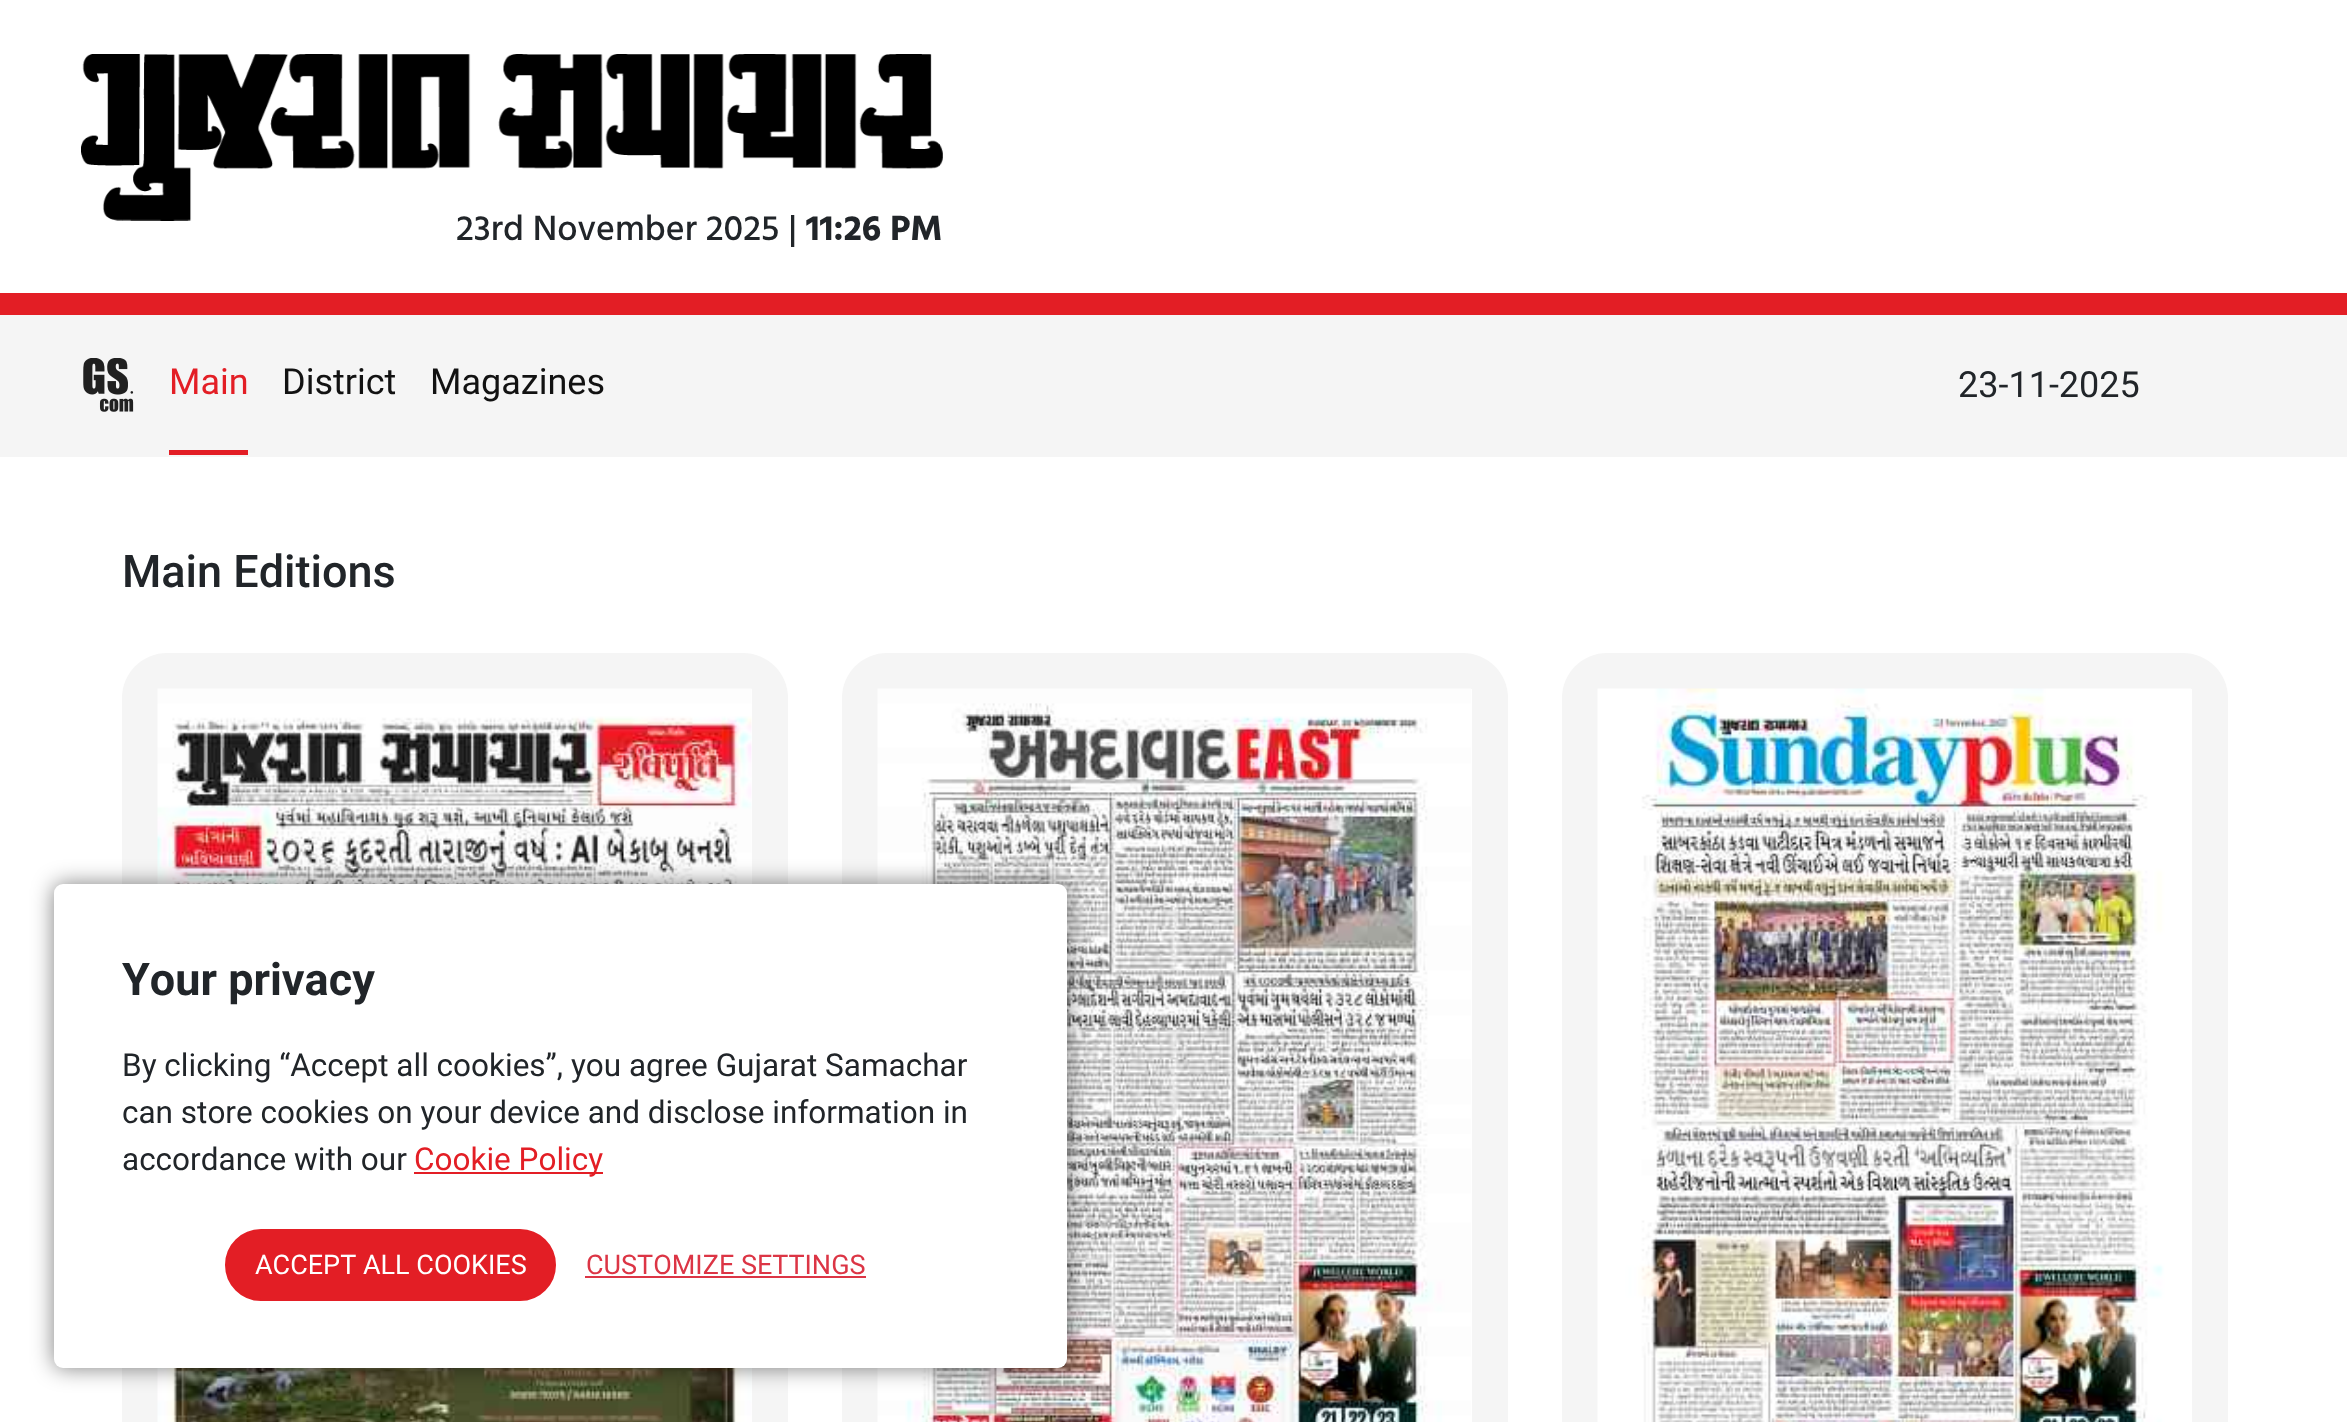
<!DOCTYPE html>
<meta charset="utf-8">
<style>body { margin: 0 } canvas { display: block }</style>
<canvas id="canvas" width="2347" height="1422"></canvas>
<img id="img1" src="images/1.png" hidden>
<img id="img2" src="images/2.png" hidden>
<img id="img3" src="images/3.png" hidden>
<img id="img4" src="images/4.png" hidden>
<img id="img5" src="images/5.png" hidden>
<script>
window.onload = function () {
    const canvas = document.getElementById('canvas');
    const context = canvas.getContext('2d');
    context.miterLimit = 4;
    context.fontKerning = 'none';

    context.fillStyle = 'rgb(255, 255, 255)';
    context.fillRect(0, 0, 2347, 1422);
    context.drawImage(document.getElementById('img1'), 81, 54, 862, 167);
    context.fillStyle = 'rgb(245, 245, 245)';
    context.fillRect(0, 315, 2347, 142);
    context.fillStyle = 'rgb(227, 30, 37)';
    context.fillRect(0, 293, 2347, 22);
    context.drawImage(document.getElementById('img2'), 83, 358, 51, 54);
    context.fillRect(169, 450, 79, 5);
    context.fillStyle = 'rgb(245, 245, 245)';
    context.beginPath();
    context.roundRect(122, 653, 666, 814, 45);
    context.fill();
    context.fillStyle = 'rgb(255, 255, 255)';
    context.fillRect(751, 689, 1, 733);
    context.drawImage(document.getElementById('img3'), 157, 688, 595, 734);
    context.fillStyle = 'rgb(245, 245, 245)';
    context.beginPath();
    context.roundRect(842, 653, 666, 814, 45);
    context.fill();
    context.fillStyle = 'rgb(255, 255, 255)';
    context.fillRect(1471, 689, 1, 733);
    context.drawImage(document.getElementById('img4'), 877, 688, 594, 734);
    context.fillStyle = 'rgb(245, 245, 245)';
    context.beginPath();
    context.roundRect(1562, 653, 666, 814, 45);
    context.fill();
    context.fillStyle = 'rgb(255, 255, 255)';
    context.fillRect(2191, 689, 1, 733);
    context.drawImage(document.getElementById('img5'), 1597, 688, 594, 734);
    context.fillStyle = 'rgba(0, 0, 0, 0.5)';
    context.filter = 'blur(11px)';
    context.beginPath();
    context.roundRect(54, 884, 1013, 484, 9);
    context.fill();
    context.filter = 'none';
    context.fillStyle = 'rgb(255, 255, 255)';
    context.beginPath();
    context.roundRect(54, 884, 1013, 484, 9);
    context.fill();
    context.fillStyle = 'rgb(227, 30, 37)';
    context.fillRect(414, 1172, 189, 2);
    context.beginPath();
    context.roundRect(226, 1230, 329, 70, 35);
    context.fill();
    context.strokeStyle = 'rgb(227, 30, 37)';
    context.lineWidth = 2;
    context.stroke();
    context.fillStyle = 'rgb(220, 53, 69)';
    context.fillRect(585, 1276, 281, 2);
    context.font = '500 36px Hind Vadodara';
    context.fillStyle = 'rgb(33, 37, 41)';
    context.fillText('23rd November 2025 |', 456, 240);
    context.font = 'bold 36px Hind Vadodara';
    context.fillText('11:26 PM', 806, 240);
    context.font = '36px Roboto';
    context.fillStyle = 'rgb(227, 30, 37)';
    context.fillText('Main', 169, 394);
    context.fillStyle = 'rgb(18, 18, 18)';
    context.fillText('District', 282, 394);
    context.fillText('Magazines', 430, 394);
    context.fillStyle = 'rgb(33, 37, 41)';
    context.fillText('23-11-2025', 1958, 397);
    context.font = '100 54px Noto Sans';
    context.fillStyle = 'rgb(227, 30, 37)';
    context.fillText('︁', 2185, 404);
    context.fillStyle = 'rgb(229, 57, 63)';
    context.fillText('︂', 2185, 404);
    context.font = '500 45px Roboto';
    context.fillStyle = 'rgb(33, 37, 41)';
    context.fillText('Main Editions', 122, 587);
    context.font = 'bold 45px Roboto';
    context.fillText('Your privacy', 122, 995);
    context.font = '31.5px Roboto';
    context.fillText('By clicking “Accept all cookies”, you agree Gujarat Samachar', 122, 1076);
    context.fillText('can store cookies on your device and disclose information in', 122, 1123);
    context.fillText('accordance with our', 122, 1170);
    context.fillStyle = 'rgb(227, 30, 37)';
    context.fillText('Cookie Policy', 414, 1170);
    context.font = '27px Roboto';
    context.fillStyle = 'rgb(255, 255, 255)';
    context.fillText('ACCEPT ALL COOKIES', 255, 1274);
    context.fillStyle = 'rgb(220, 53, 69)';
    context.fillText('CUSTOMIZE SETTINGS', 586, 1274);
};
</script>
